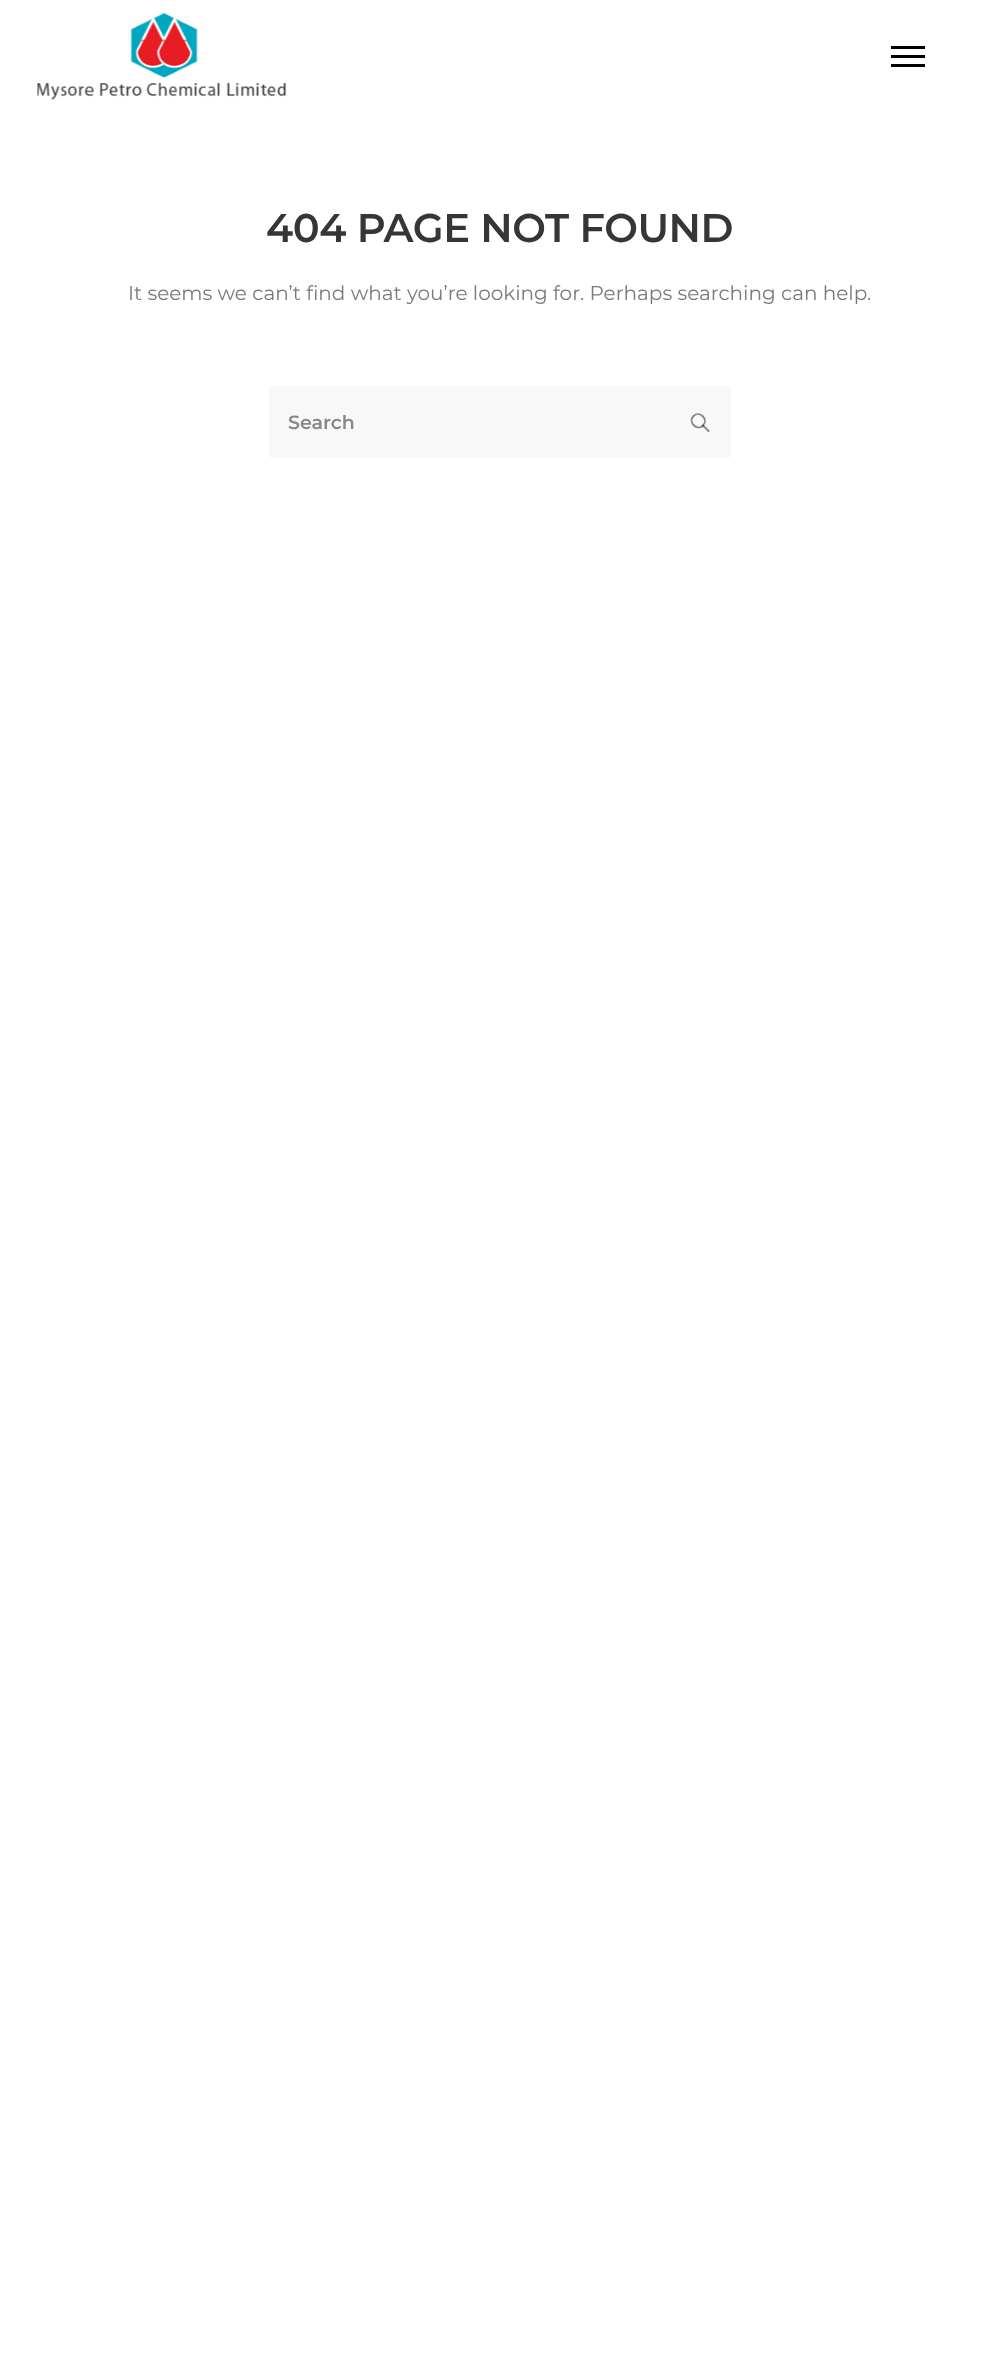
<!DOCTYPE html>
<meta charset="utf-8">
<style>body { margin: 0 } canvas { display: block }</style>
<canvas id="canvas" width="998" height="2354"></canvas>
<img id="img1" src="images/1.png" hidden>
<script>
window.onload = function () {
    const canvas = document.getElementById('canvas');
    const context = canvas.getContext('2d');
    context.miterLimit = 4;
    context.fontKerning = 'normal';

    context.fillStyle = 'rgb(255, 255, 255)';
    context.fillRect(0, 0, 998, 2354);
    context.drawImage(document.getElementById('img1'), 37, 12, 250, 88);
    context.fillStyle = 'rgb(0, 0, 0)';
    context.fillRect(891, 46, 34, 3);
    context.fillRect(891, 55, 34, 3);
    context.fillRect(891, 64, 34, 3);
    context.fillStyle = 'rgb(248, 248, 248)';
    context.beginPath();
    context.roundRect(269, 386, 462, 72, 4);
    context.fill();
    context.beginPath();
    context.moveTo(693.5, 416);
    context.bezierCurveTo(699.5, 410, 709, 419.5, 703, 425.5);
    context.bezierCurveTo(697, 431.5, 687.5, 422, 693.5, 416);
    context.closePath();
    context.strokeStyle = 'rgb(136, 136, 136)';
    context.lineWidth = 1.9;
    context.stroke();
    context.beginPath();
    context.moveTo(703, 425.5);
    context.lineTo(708.5, 431);
    context.strokeStyle = 'rgba(0, 0, 0, 0.45)';
    context.lineCap = 'round';
    context.stroke();
    context.letterSpacing = '-0.4px';
    context.font = '600 40px Montserrat';
    context.fillStyle = 'rgb(52, 54, 56)';
    context.fillText('404 PAGE NOT FOUND', 266, 242);
    context.letterSpacing = '0px';
    context.font = '20px Montserrat';
    context.fillStyle = 'rgb(119, 121, 125)';
    context.fillText('It seems we can’t find what you’re looking for. Perhaps searching can help.', 128, 300);
    context.font = '600 19px Montserrat';
    context.fillStyle = 'rgb(136, 136, 136)';
    context.fillText('Search', 288, 429);
};
</script>
